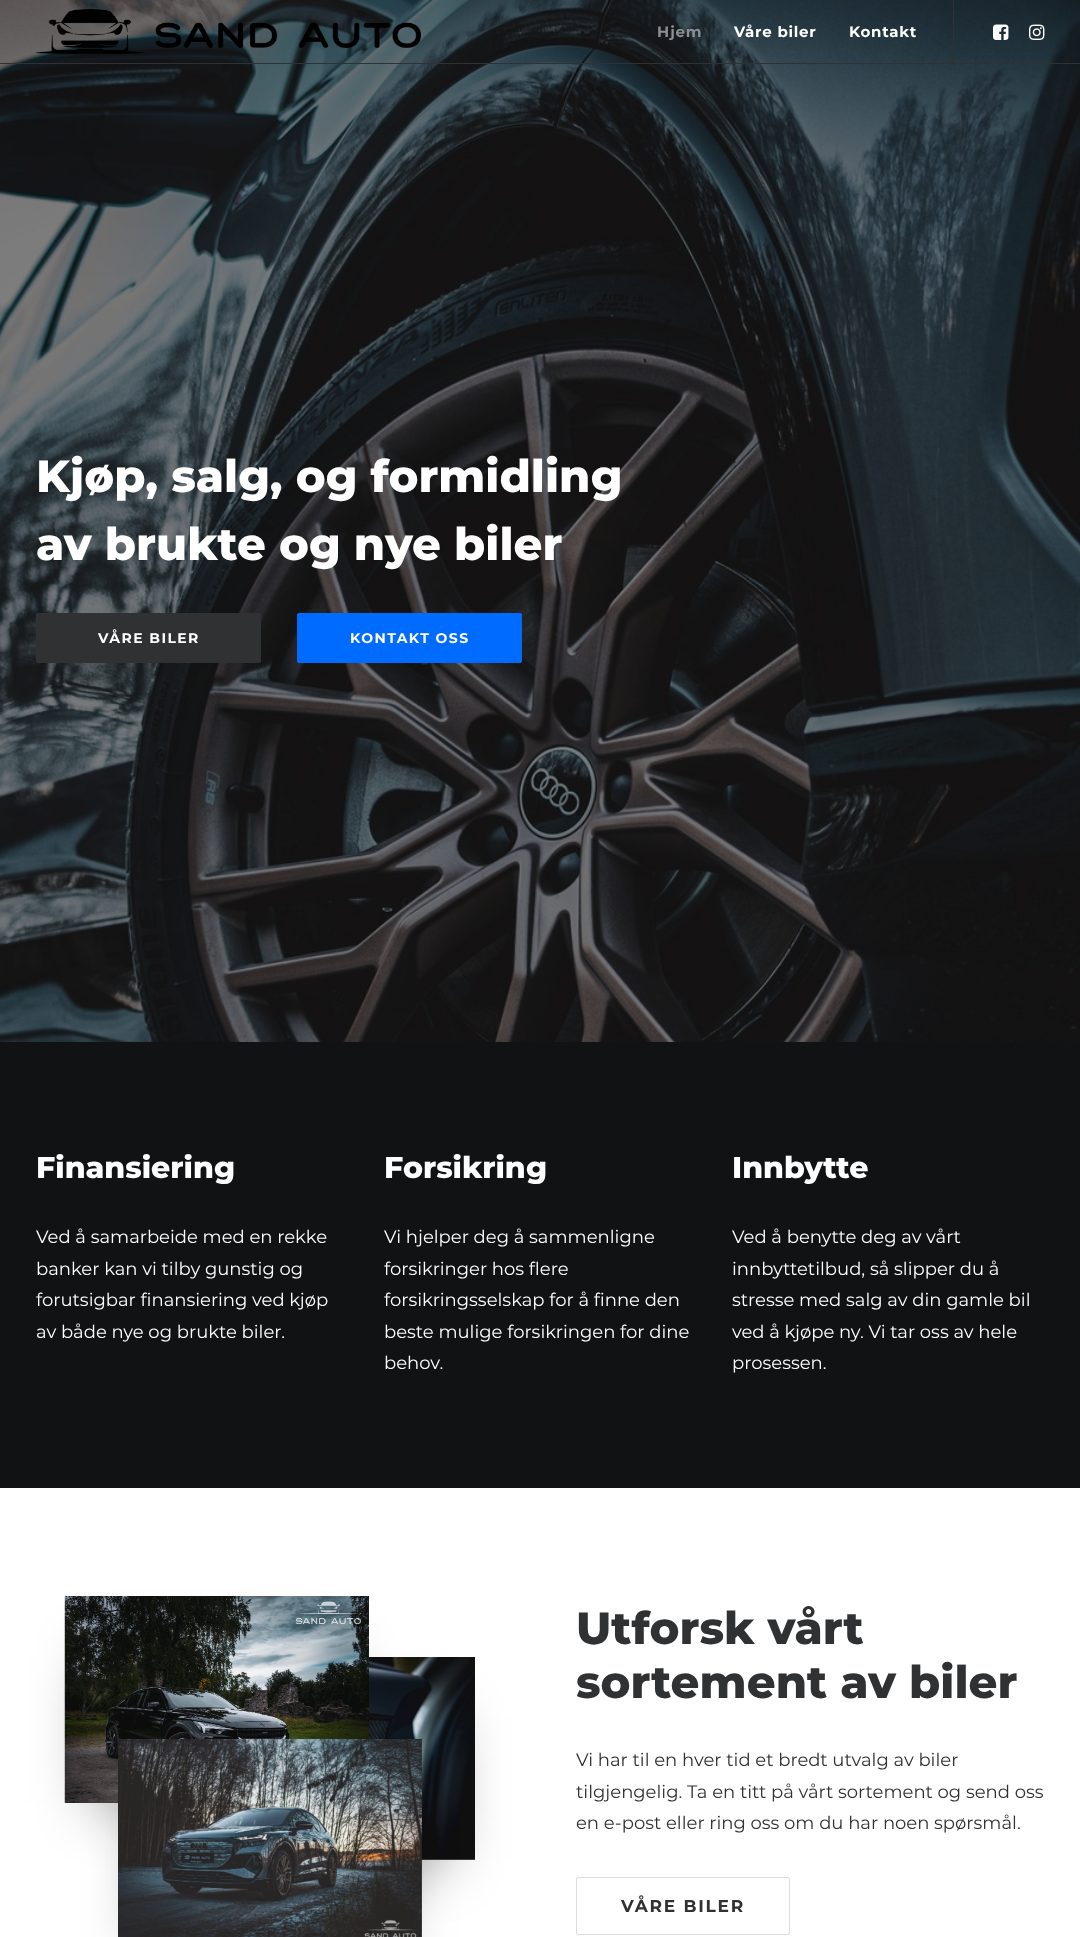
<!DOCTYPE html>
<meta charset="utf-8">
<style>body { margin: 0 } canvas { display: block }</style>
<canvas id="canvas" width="1080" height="1937"></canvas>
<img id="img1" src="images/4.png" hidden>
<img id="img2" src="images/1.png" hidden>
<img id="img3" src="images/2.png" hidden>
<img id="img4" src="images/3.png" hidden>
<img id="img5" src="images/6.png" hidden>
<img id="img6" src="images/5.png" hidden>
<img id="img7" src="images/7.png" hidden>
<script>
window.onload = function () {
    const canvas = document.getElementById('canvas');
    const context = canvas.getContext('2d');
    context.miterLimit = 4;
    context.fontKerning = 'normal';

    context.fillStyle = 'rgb(255, 255, 255)';
    context.fillRect(0, 0, 1080, 1937);
    context.drawImage(document.getElementById('img1'), 0, 0, 1080, 1042);
    context.fillStyle = 'rgb(48, 49, 51)';
    context.fillRect(0, 63, 1080, 1);
    context.drawImage(document.getElementById('img2'), 36, 9, 385, 45);
    context.fillRect(953, 0, 1, 63);
    context.drawImage(document.getElementById('img3'), 993, 24, 16, 16);
    context.drawImage(document.getElementById('img4'), 1029, 24, 16, 16);
    context.beginPath();
    context.roundRect(36.5, 613.5, 224, 49, 1.5);
    context.fill();
    context.strokeStyle = 'rgb(48, 49, 51)';
    context.stroke();
    context.beginPath();
    context.roundRect(36.5, 613.5, 224, 49, 1.5);
    context.stroke();
    context.fillStyle = 'rgb(0, 108, 255)';
    context.beginPath();
    context.roundRect(297.5, 613.5, 224, 49, 1.5);
    context.fill();
    context.strokeStyle = 'rgb(0, 108, 255)';
    context.stroke();
    context.beginPath();
    context.roundRect(297.5, 613.5, 224, 49, 1.5);
    context.stroke();
    context.fillStyle = 'rgb(16, 18, 19)';
    context.fillRect(0, 1042, 1080, 446);
    context.fillStyle = 'rgba(0, 0, 0, 0.45)';
    context.filter = 'blur(30px)';
    context.beginPath();
    context.rect(201, 1717, 244, 143);
    context.fill();
    context.filter = 'none';
    context.drawImage(document.getElementById('img5'), 368, 1657, 107, 203);
    context.filter = 'blur(30px)';
    context.beginPath();
    context.rect(95, 1656, 244, 147);
    context.fill();
    context.filter = 'none';
    context.drawImage(document.getElementById('img6'), 64, 1596, 305, 207);
    context.filter = 'blur(30px)';
    context.beginPath();
    context.rect(148, 1799, 244, 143);
    context.fill();
    context.filter = 'none';
    context.drawImage(document.getElementById('img7'), 118, 1739, 304, 198);
    context.beginPath();
    context.roundRect(576.5, 1877.5, 213, 57, 1.5);
    context.strokeStyle = 'rgb(221, 221, 221)';
    context.stroke();
    context.letterSpacing = '0.75px';
    context.font = 'bold 15px Montserrat';
    context.fillStyle = 'rgb(141, 144, 147)';
    context.fillText('Hjem', 657, 37);
    context.fillStyle = 'rgb(255, 255, 255)';
    context.fillText('Våre biler', 734, 37);
    context.fillText('Kontakt', 849, 37);
    context.letterSpacing = '0px';
    context.font = '800 45px Montserrat';
    context.fillText('Kjøp, salg, og formidling', 36, 492);
    context.fillText('av brukte og nye biler', 36, 560);
    context.letterSpacing = '1.4px';
    context.font = 'bold 14px Montserrat';
    context.fillText('VÅRE BILER', 98, 643);
    context.fillText('KONTAKT OSS', 350, 643);
    context.letterSpacing = '0px';
    context.font = '800 30px Montserrat';
    context.fillText('Finansiering', 36, 1178);
    context.font = '18px Montserrat';
    context.fillText('Ved å samarbeide med en rekke', 36, 1243);
    context.fillText('banker kan vi tilby gunstig og', 36, 1275);
    context.fillText('forutsigbar finansiering ved kjøp', 36, 1306);
    context.fillText('av både nye og brukte biler.', 36, 1338);
    context.font = '800 30px Montserrat';
    context.fillText('Forsikring', 384, 1178);
    context.font = '18px Montserrat';
    context.fillText('Vi hjelper deg å sammenligne', 384, 1243);
    context.fillText('forsikringer hos flere', 384, 1275);
    context.fillText('forsikringsselskap for å finne den', 384, 1306);
    context.fillText('beste mulige forsikringen for dine', 384, 1338);
    context.fillText('behov.', 384, 1369);
    context.font = '800 30px Montserrat';
    context.fillText('Innbytte', 732, 1178);
    context.font = '18px Montserrat';
    context.fillText('Ved å benytte deg av vårt', 732, 1243);
    context.fillText('innbyttetilbud, så slipper du å', 732, 1275);
    context.fillText('stresse med salg av din gamle bil', 732, 1306);
    context.fillText('ved å kjøpe ny. Vi tar oss av hele', 732, 1338);
    context.fillText('prosessen.', 732, 1369);
    context.font = '800 45px Montserrat';
    context.fillStyle = 'rgb(48, 49, 51)';
    context.fillText('Utforsk vårt', 576, 1644);
    context.fillText('sortement av biler', 576, 1698);
    context.font = '18px Montserrat';
    context.fillText('Vi har til en hver tid et bredt utvalg av biler', 576, 1766);
    context.fillText('tilgjengelig. Ta en titt på vårt sortement og send oss', 576, 1798);
    context.fillText('en e-post eller ring oss om du har noen spørsmål.', 576, 1829);
    context.letterSpacing = '1.75px';
    context.font = 'bold 17px Montserrat';
    context.fillText('VÅRE BILER', 621, 1912);
};
</script>
